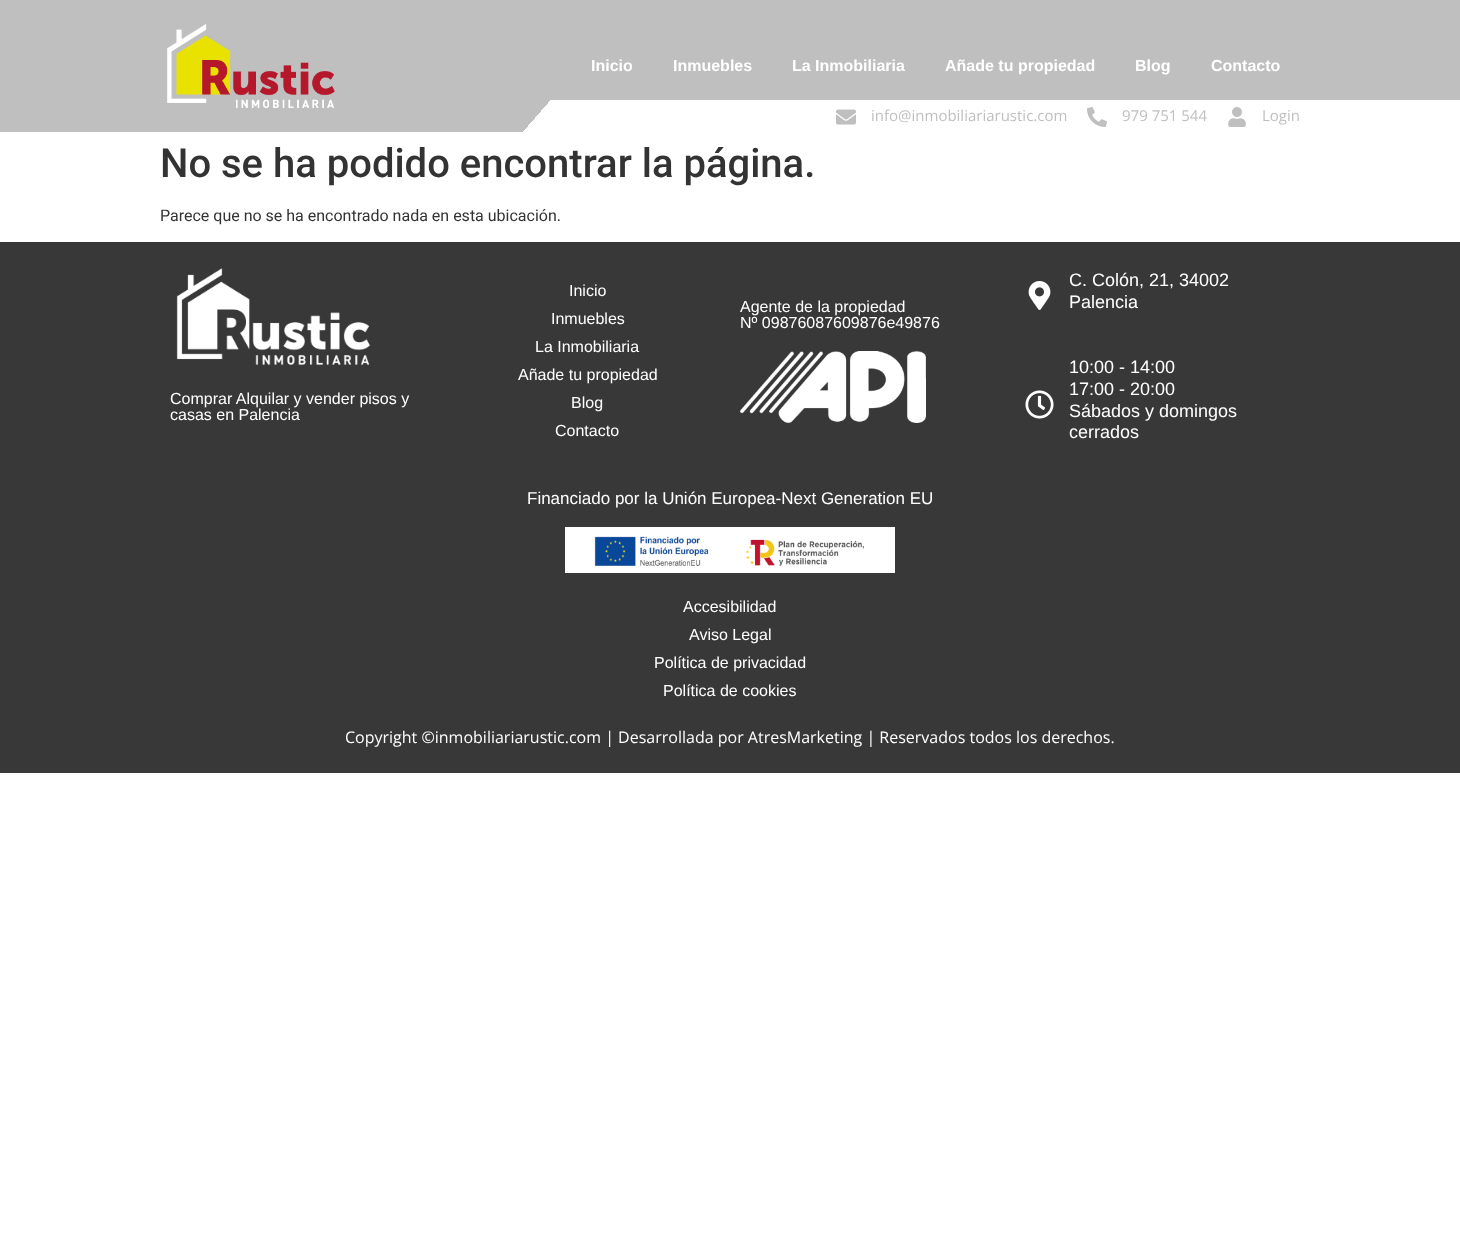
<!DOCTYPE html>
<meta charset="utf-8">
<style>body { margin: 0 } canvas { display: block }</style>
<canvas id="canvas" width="1460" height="1248"></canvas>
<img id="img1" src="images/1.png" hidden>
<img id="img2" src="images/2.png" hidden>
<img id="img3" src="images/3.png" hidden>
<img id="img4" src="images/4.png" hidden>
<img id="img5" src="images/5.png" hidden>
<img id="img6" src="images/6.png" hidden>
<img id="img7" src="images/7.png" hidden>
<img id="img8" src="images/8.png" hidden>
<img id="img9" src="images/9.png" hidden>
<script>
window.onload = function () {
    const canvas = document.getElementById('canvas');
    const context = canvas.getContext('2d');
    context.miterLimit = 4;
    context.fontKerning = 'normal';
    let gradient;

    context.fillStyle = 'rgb(255, 255, 255)';
    context.fillRect(0, 0, 1460, 1248);
    context.fillStyle = 'rgb(191, 191, 191)';
    context.fillRect(0, 0, 1460, 132);
    context.drawImage(document.getElementById('img1'), 167, 24, 168, 84);
    gradient = context.createLinearGradient(306, -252, 1154, 484);
    gradient.addColorStop(0.37, 'rgba(255, 255, 255, 0)');
    gradient.addColorStop(0.37, 'rgb(255, 255, 255)');
    context.fillStyle = gradient;
    context.fillRect(523, 100, 937, 32);
    context.drawImage(document.getElementById('img2'), 836, 109, 20, 16);
    context.drawImage(document.getElementById('img3'), 1087, 107, 20, 20);
    context.drawImage(document.getElementById('img4'), 1228, 107, 18, 20);
    context.fillStyle = 'rgb(56, 56, 56)';
    context.fillRect(0, 242, 1460, 531);
    context.drawImage(document.getElementById('img5'), 740, 351, 186, 72);
    context.drawImage(document.getElementById('img6'), 1028, 281, 23, 29);
    context.drawImage(document.getElementById('img7'), 1025, 390, 29, 29);
    context.drawImage(document.getElementById('img8'), 176, 268, 194, 98);
    context.fillStyle = 'rgb(255, 255, 255)';
    context.fillRect(565, 527, 330, 46);
    context.drawImage(document.getElementById('img9'), 594, 536, 270, 30);
    context.font = 'bold 16px Liberation Sans';
    context.fillText('Inicio', 591, 71);
    context.fillText('Inmuebles', 673, 71);
    context.fillText('La Inmobiliaria', 792, 71);
    context.fillText('Añade tu propiedad', 945, 71);
    context.fillText('Blog', 1135, 71);
    context.fillText('Contacto', 1211, 71);
    context.font = '15px Open Sans';
    context.fillStyle = 'rgb(191, 191, 191)';
    context.fillText('info@inmobiliariarustic.com', 871, 121);
    context.fillText('979 751 544', 1122, 121);
    context.fillText('Login', 1262, 121);
    context.font = '500 40px Roboto';
    context.fillStyle = 'rgb(51, 51, 51)';
    context.fillText('No se ha podido encontrar la página.', 160, 177);
    context.font = '16px Roboto';
    context.fillText('Parece que no se ha encontrado nada en esta ubicación.', 160, 221);
    context.font = '16px Liberation Sans';
    context.fillStyle = 'rgb(255, 255, 255)';
    context.fillText('Inicio', 569, 296);
    context.fillText('Inmuebles', 551, 324);
    context.fillText('La Inmobiliaria', 535, 352);
    context.fillText('Añade tu propiedad', 518, 380);
    context.fillText('Blog', 571, 408);
    context.fillText('Contacto', 555, 436);
    context.fillText('Agente de la propiedad', 740, 312);
    context.fillText('Nº 09876087609876e49876', 740, 328);
    context.font = '18px Liberation Sans';
    context.fillText('C. Colón, 21, 34002', 1069, 286);
    context.fillText('Palencia', 1069, 308);
    context.fillText('10:00 - 14:00', 1069, 373);
    context.fillText('17:00 - 20:00', 1069, 395);
    context.fillText('Sábados y domingos', 1069, 417);
    context.fillText('cerrados', 1069, 438);
    context.font = '16px Liberation Sans';
    context.fillText('Comprar Alquilar y vender pisos y', 170, 404);
    context.fillText('casas en Palencia', 170, 420);
    context.font = '17px Liberation Sans';
    context.fillText('Financiado por la Unión Europea-Next Generation EU', 527, 504);
    context.font = '16px Liberation Sans';
    context.fillText('Accesibilidad', 683, 612);
    context.fillText('Aviso Legal', 689, 640);
    context.fillText('Política de privacidad', 654, 668);
    context.fillText('Política de cookies', 663, 696);
    context.font = '16px Open Sans';
    context.fillText('Copyright ©inmobiliariarustic.com | Desarrollada por AtresMarketing | Reservados todos los derechos.', 345, 743);
};
</script>
